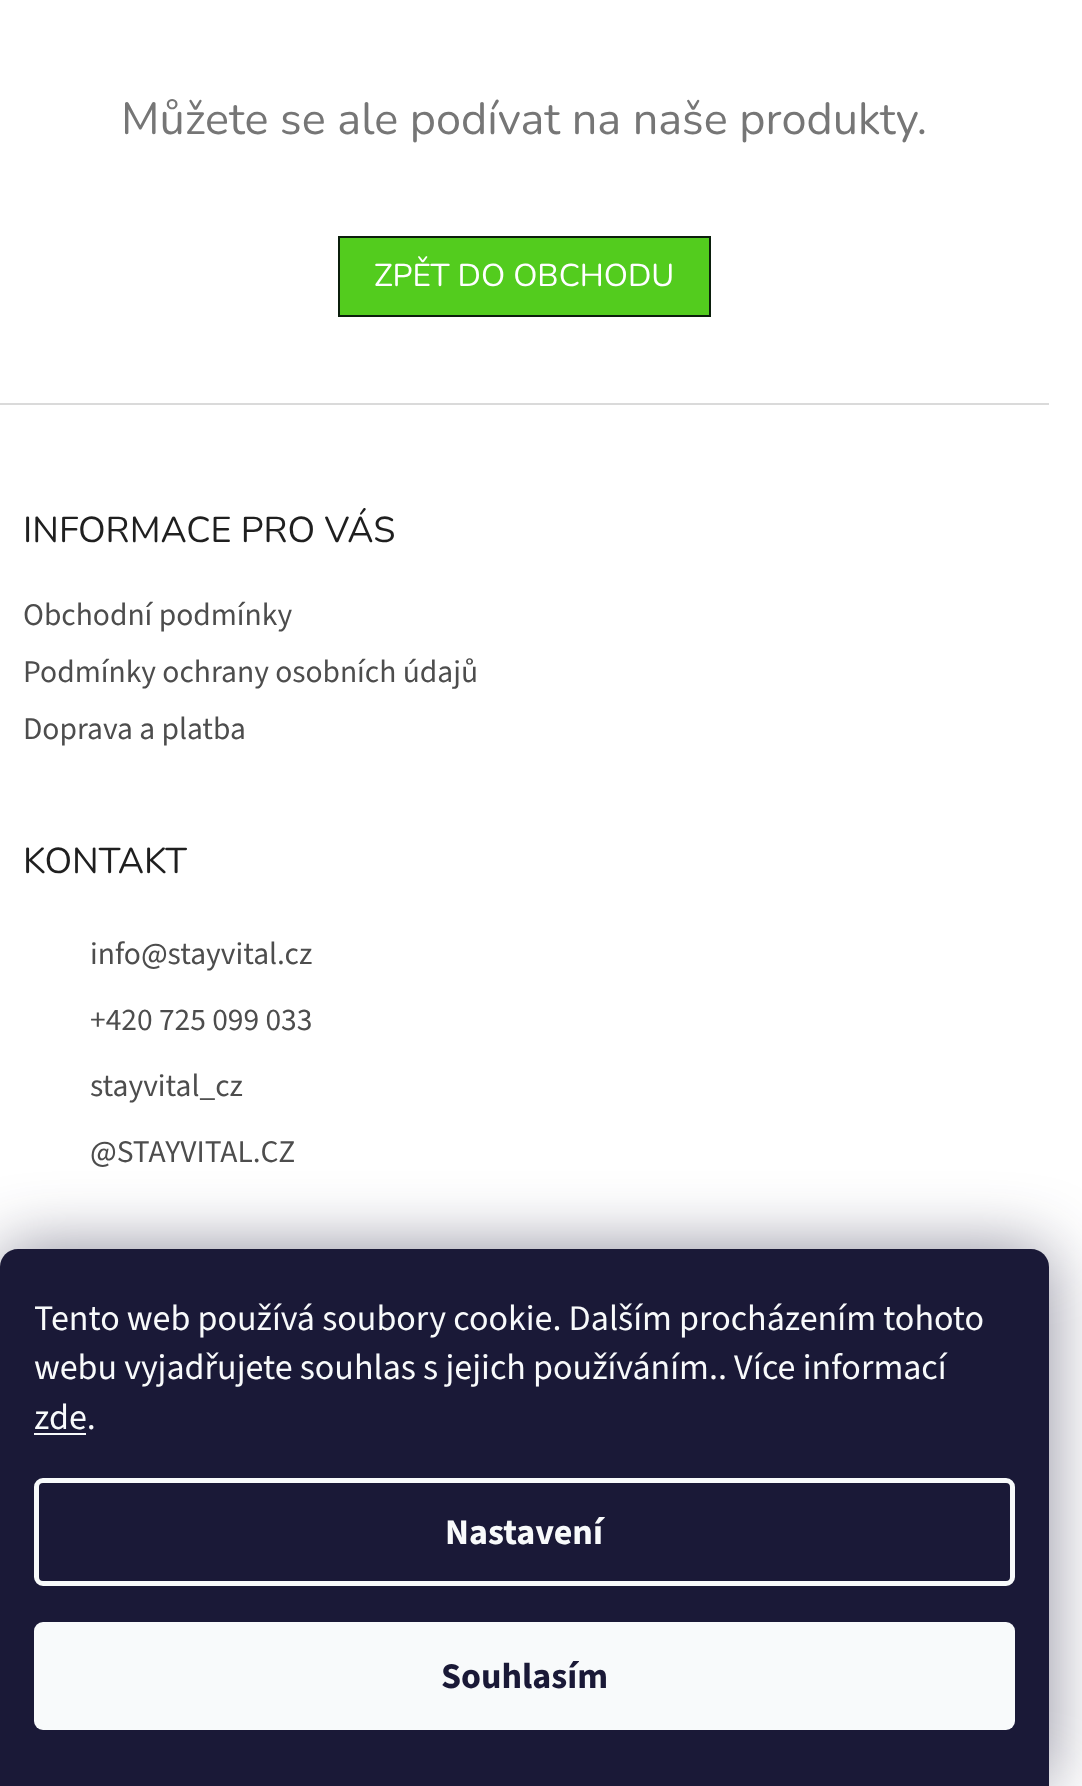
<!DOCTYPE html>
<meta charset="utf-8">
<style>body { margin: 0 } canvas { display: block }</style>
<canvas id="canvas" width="1082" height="1786"></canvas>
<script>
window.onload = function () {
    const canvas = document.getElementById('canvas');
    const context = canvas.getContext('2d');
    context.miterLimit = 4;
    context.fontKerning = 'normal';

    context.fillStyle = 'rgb(255, 255, 255)';
    context.fillRect(0, 0, 1082, 1786);
    context.fillStyle = 'rgb(83, 204, 30)';
    context.beginPath();
    context.rect(339, 237, 371, 79);
    context.fill();
    context.strokeStyle = 'rgb(11, 30, 12)';
    context.lineWidth = 2;
    context.stroke();
    context.fillStyle = 'rgb(218, 218, 218)';
    context.fillRect(0, 403, 1049, 2);
    context.fillStyle = 'rgba(27, 25, 57, 0.5)';
    context.filter = 'blur(34px)';
    context.beginPath();
    context.roundRect(0, 1249, 1049, 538, 18);
    context.fill();
    context.filter = 'none';
    context.fillStyle = 'rgb(26, 25, 55)';
    context.beginPath();
    context.moveTo(18, 1249);
    context.lineTo(1031, 1249);
    context.bezierCurveTo(1041, 1249, 1049, 1257, 1049, 1267);
    context.lineTo(1049, 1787);
    context.lineTo(0, 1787);
    context.lineTo(0, 1267);
    context.bezierCurveTo(0, 1257, 8, 1249, 18, 1249);
    context.closePath();
    context.fill();
    context.fillStyle = 'rgb(248, 250, 251)';
    context.fillRect(34, 1433, 52, 2);
    context.beginPath();
    context.roundRect(36.5, 1480.5, 976, 103, 6.5);
    context.strokeStyle = 'rgb(248, 250, 251)';
    context.lineWidth = 5;
    context.stroke();
    context.beginPath();
    context.roundRect(34, 1622, 981, 108, 9);
    context.fill();
    context.font = '45px Nunito';
    context.fillStyle = 'rgb(118, 118, 118)';
    context.fillText('Můžete se ale podívat na naše produkty.', 121, 134);
    context.font = '31.5px Nunito';
    context.fillStyle = 'rgb(255, 255, 255)';
    context.fillText('ZPĚT DO OBCHODU', 374, 286);
    context.font = '36px Nunito';
    context.fillStyle = 'rgb(31, 31, 31)';
    context.fillText('INFORMACE PRO VÁS', 23, 542);
    context.font = '31.5px "Source Sans 3"';
    context.fillStyle = 'rgb(77, 77, 77)';
    context.fillText('Obchodní podmínky', 23, 625);
    context.fillText('Podmínky ochrany osobních údajů', 23, 682);
    context.fillText('Doprava a platba', 23, 739);
    context.font = '36px Nunito';
    context.fillStyle = 'rgb(31, 31, 31)';
    context.fillText('KONTAKT', 23, 873);
    context.font = '31.5px "Source Sans 3"';
    context.fillStyle = 'rgb(77, 77, 77)';
    context.fillText('info@stayvital.cz', 90, 964);
    context.fillText('+420 725 099 033', 90, 1030);
    context.fillText('stayvital_cz', 90, 1096);
    context.fillText('@STAYVITAL.CZ', 90, 1162);
    context.font = '36px "Source Sans 3"';
    context.fillStyle = 'rgb(248, 250, 251)';
    context.fillText('Tento web používá soubory cookie. Dalším procházením tohoto', 34, 1330);
    context.fillText('webu vyjadřujete souhlas s jejich používáním.. Více informací', 34, 1379);
    context.fillText('zde.', 34, 1429);
    context.font = 'bold 36px "Source Sans 3"';
    context.fillText('Nastavení', 445, 1544);
    context.fillStyle = 'rgb(26, 25, 55)';
    context.fillText('Souhlasím', 441, 1688);
};
</script>
